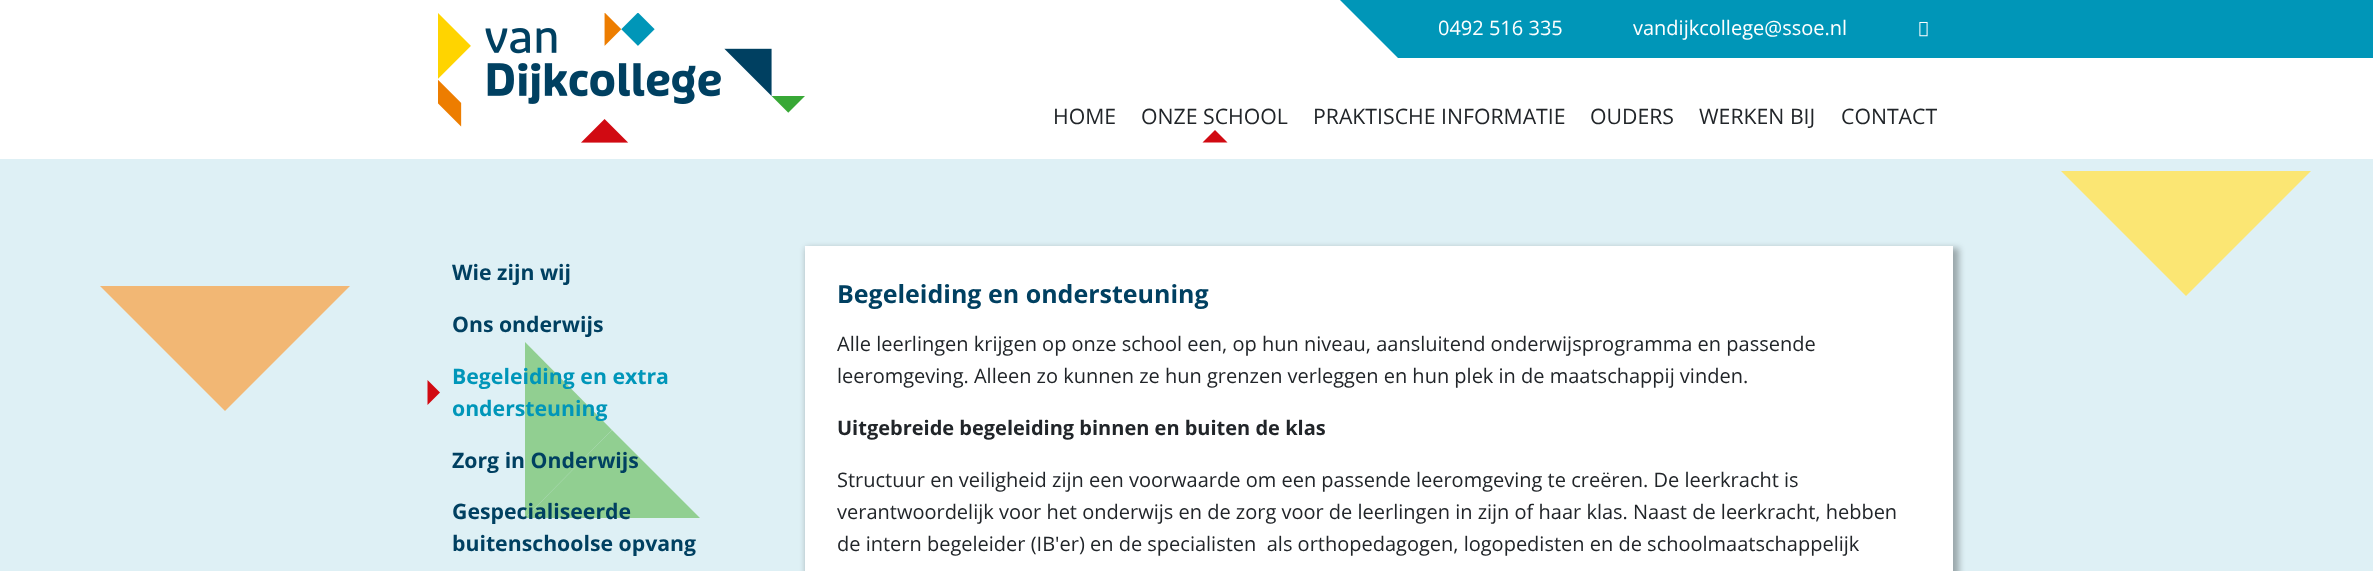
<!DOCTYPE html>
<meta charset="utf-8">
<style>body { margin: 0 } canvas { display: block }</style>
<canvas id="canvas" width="2373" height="571"></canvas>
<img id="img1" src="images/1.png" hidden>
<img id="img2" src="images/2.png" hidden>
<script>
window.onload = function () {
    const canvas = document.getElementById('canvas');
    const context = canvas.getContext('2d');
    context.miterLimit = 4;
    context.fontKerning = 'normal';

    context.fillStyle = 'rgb(255, 255, 255)';
    context.fillRect(0, 0, 2373, 571);
    context.fillStyle = 'rgb(0, 150, 184)';
    context.fillRect(1398, 0, 975, 58);
    context.beginPath();
    context.moveTo(1340, 0);
    context.lineTo(1398, 0);
    context.lineTo(1398, 58);
    context.closePath();
    context.fill();
    context.drawImage(document.getElementById('img1'), 1919, 21, 9, 16);
    context.drawImage(document.getElementById('img2'), 438, 13, 367, 130);
    context.fillStyle = 'rgb(209, 10, 18)';
    context.beginPath();
    context.moveTo(1227.5, 142.5);
    context.lineTo(1202.5, 142.5);
    context.lineTo(1215, 130);
    context.closePath();
    context.fill();
    context.fillStyle = 'rgb(222, 240, 245)';
    context.fillRect(0, 159, 2373, 412);
    context.fillStyle = 'rgb(251, 230, 115)';
    context.beginPath();
    context.moveTo(2061, 171);
    context.lineTo(2311, 171);
    context.lineTo(2186, 296);
    context.closePath();
    context.fill();
    context.fillStyle = 'rgb(242, 183, 116)';
    context.beginPath();
    context.moveTo(100, 286);
    context.lineTo(350, 286);
    context.lineTo(225, 411);
    context.closePath();
    context.fill();
    context.fillStyle = 'rgb(145, 207, 145)';
    context.beginPath();
    context.moveTo(700, 518);
    context.lineTo(525, 518);
    context.lineTo(612, 430);
    context.closePath();
    context.fill();
    context.beginPath();
    context.moveTo(525, 518);
    context.lineTo(525, 342);
    context.lineTo(612, 430);
    context.closePath();
    context.fill();
    context.fillStyle = 'rgb(209, 10, 18)';
    context.beginPath();
    context.moveTo(427.5, 405);
    context.lineTo(427.5, 380);
    context.lineTo(440, 392.5);
    context.closePath();
    context.fill();
    context.fillStyle = 'rgba(0, 0, 0, 0.3)';
    context.filter = 'blur(3px)';
    context.beginPath();
    context.rect(806, 248, 1153, 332);
    context.fill();
    context.filter = 'none';
    context.fillStyle = 'rgb(255, 255, 255)';
    context.fillRect(805, 246, 1148, 325);
    context.font = '20px Open Sans';
    context.fillText('0492 516 335', 1438, 35);
    context.fillText('vandijkcollege@ssoe.nl', 1633, 35);
    context.font = '21.25px Open Sans';
    context.fillStyle = 'rgb(33, 37, 41)';
    context.fillText('HOME', 1053, 124);
    context.fillText('ONZE SCHOOL', 1141, 124);
    context.fillText('PRAKTISCHE INFORMATIE', 1313, 124);
    context.fillText('OUDERS', 1590, 124);
    context.fillText('WERKEN BIJ', 1699, 124);
    context.fillText('CONTACT', 1841, 124);
    context.font = 'bold 21.25px Open Sans';
    context.fillStyle = 'rgb(0, 64, 97)';
    context.fillText('Wie zijn wij', 452, 280);
    context.fillText('Ons onderwijs', 452, 332);
    context.fillStyle = 'rgb(0, 150, 185)';
    context.fillText('Begeleiding en extra', 452, 384);
    context.fillText('ondersteuning', 452, 416);
    context.fillStyle = 'rgb(0, 64, 97)';
    context.fillText('Zorg in Onderwijs', 452, 468);
    context.fillText('Gespecialiseerde', 452, 519);
    context.fillText('buitenschoolse opvang', 452, 551);
    context.font = 'bold 25px Open Sans';
    context.fillText('Begeleiding en ondersteuning', 837, 303);
    context.font = '20px Open Sans';
    context.fillStyle = 'rgb(33, 37, 41)';
    context.fillText('Alle leerlingen krijgen op onze school een, op hun niveau, aansluitend onderwijsprogramma en passende', 837, 351);
    context.fillText('leeromgeving. Alleen zo kunnen ze hun grenzen verleggen en hun plek in de maatschappij vinden.', 837, 383);
    context.font = 'bold 20px Open Sans';
    context.fillText('Uitgebreide begeleiding binnen en buiten de klas', 837, 435);
    context.font = '20px Open Sans';
    context.fillText('Structuur en veiligheid zijn een voorwaarde om een passende leeromgeving te creëren. De leerkracht is', 837, 487);
    context.fillText('verantwoordelijk voor het onderwijs en de zorg voor de leerlingen in zijn of haar klas. Naast de leerkracht, hebben', 837, 519);
    context.fillText('de intern begeleider (IB\'er) en de specialisten  als orthopedagogen, logopedisten en de schoolmaatschappelijk', 837, 551);
};
</script>
